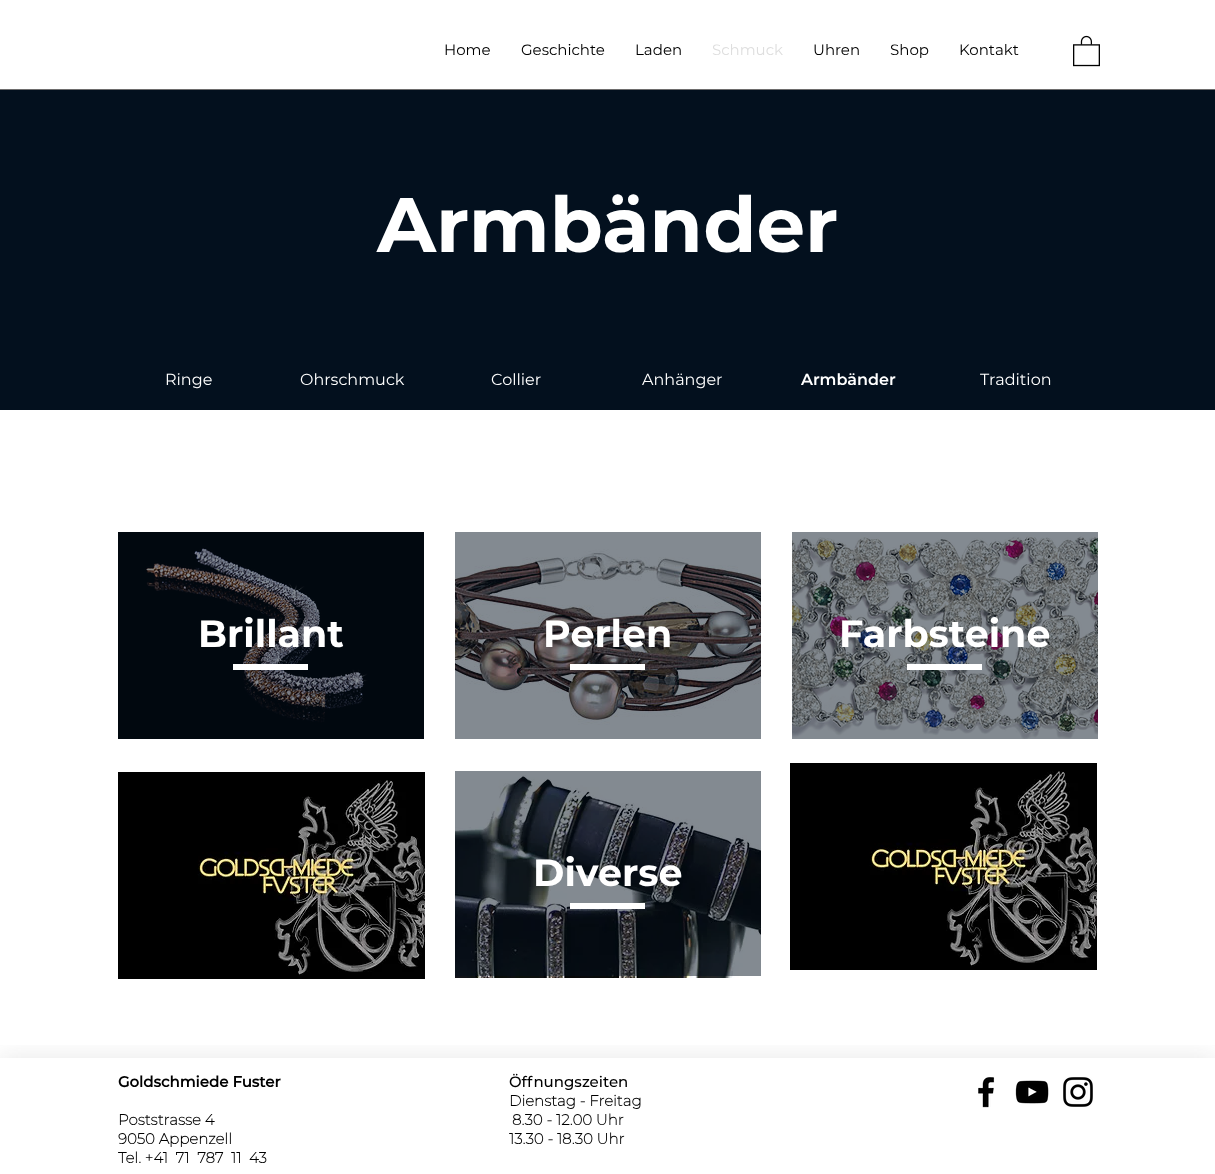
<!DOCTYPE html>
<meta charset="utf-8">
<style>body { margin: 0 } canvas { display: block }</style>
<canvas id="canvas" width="1215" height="1174"></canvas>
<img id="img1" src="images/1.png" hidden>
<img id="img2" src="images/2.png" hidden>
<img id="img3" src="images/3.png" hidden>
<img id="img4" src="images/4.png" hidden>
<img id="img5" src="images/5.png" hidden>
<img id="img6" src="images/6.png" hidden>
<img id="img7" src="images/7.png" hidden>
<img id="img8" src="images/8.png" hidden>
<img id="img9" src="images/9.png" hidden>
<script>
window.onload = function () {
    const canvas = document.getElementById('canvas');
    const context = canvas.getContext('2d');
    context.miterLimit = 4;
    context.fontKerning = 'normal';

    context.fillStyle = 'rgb(255, 255, 255)';
    context.fillRect(0, 0, 1215, 1174);
    context.drawImage(document.getElementById('img1'), 1073, 35, 27, 32);
    context.fillStyle = 'rgb(110, 109, 109)';
    context.fillRect(0, 89, 1215, 1);
    context.fillStyle = 'rgb(3, 16, 30)';
    context.fillRect(0, 90, 1215, 320);
    context.drawImage(document.getElementById('img2'), 118, 532, 306, 207);
    context.fillStyle = 'rgb(255, 255, 255)';
    context.fillRect(233, 664, 75, 6);
    context.drawImage(document.getElementById('img3'), 455, 532, 306, 207);
    context.fillRect(570, 664, 75, 6);
    context.drawImage(document.getElementById('img4'), 792, 532, 306, 207);
    context.fillRect(907, 664, 75, 6);
    context.drawImage(document.getElementById('img5'), 118, 772, 307, 207);
    context.drawImage(document.getElementById('img6'), 455, 771, 306, 207);
    context.fillRect(570, 903, 75, 6);
    context.drawImage(document.getElementById('img5'), 790, 763, 307, 207);
    context.save();
    context.beginPath();
    context.rect(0, 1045, 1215, 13);
    context.clip();
    context.fillStyle = 'rgba(47, 46, 46, 0.12)';
    context.filter = 'blur(13.5px)';
    context.beginPath();
    context.rect(0, 1058, 1215, 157);
    context.fill();
    context.filter = 'none';
    context.restore();
    context.drawImage(document.getElementById('img7'), 978, 1077, 17, 31);
    context.drawImage(document.getElementById('img8'), 1015, 1080, 34, 24);
    context.drawImage(document.getElementById('img9'), 1063, 1077, 30, 30);
    context.font = '15px Montserrat';
    context.fillStyle = 'rgb(0, 0, 0)';
    context.fillText('Home', 444, 55);
    context.fillText('Geschichte', 521, 55);
    context.fillText('Laden', 635, 55);
    context.fillStyle = 'rgb(222, 222, 222)';
    context.fillText('Schmuck', 712, 55);
    context.fillStyle = 'rgb(0, 0, 0)';
    context.fillText('Uhren', 813, 55);
    context.fillText('Shop', 890, 55);
    context.fillText('Kontakt', 959, 55);
    context.font = 'bold 77px Montserrat';
    context.fillStyle = 'rgb(255, 255, 255)';
    context.fillText('Armbänder', 377, 252);
    context.font = '16px Montserrat';
    context.fillText('Ringe', 165, 385);
    context.fillText('Ohrschmuck', 300, 385);
    context.fillText('Collier', 491, 385);
    context.fillText('Anhänger', 642, 385);
    context.font = '600 16px Montserrat';
    context.fillText('Armbänder', 801, 385);
    context.font = '16px Montserrat';
    context.fillText('Tradition', 980, 385);
    context.font = 'bold 38px Montserrat';
    context.fillText('Brillant', 198, 647);
    context.fillText('Perlen', 543, 647);
    context.fillText('Farbsteine', 839, 647);
    context.fillText('Diverse', 533, 886);
    context.font = 'bold 15px "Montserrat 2"';
    context.fillStyle = 'rgb(0, 0, 0)';
    context.fillText('Goldschmiede Fuster', 118, 1087);
    context.font = 'bold 15px "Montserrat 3"';
    context.fillText('Poststrasse 4', 118, 1125);
    context.fillText('9050 Appenzell', 118, 1144);
    context.fillText('Tel. +41  71  787  11  43', 118, 1163);
    context.font = '500 15px Montserrat';
    context.fillText('Öffnungszeiten', 509, 1087);
    context.font = 'bold 15px "Montserrat 3"';
    context.fillText('Dienstag - Freitag', 509, 1106);
    context.fillText('8.30 - 12.00 Uhr', 512, 1125);
    context.fillText('13.30 - 18.30 Uhr', 509, 1144);
};
</script>
